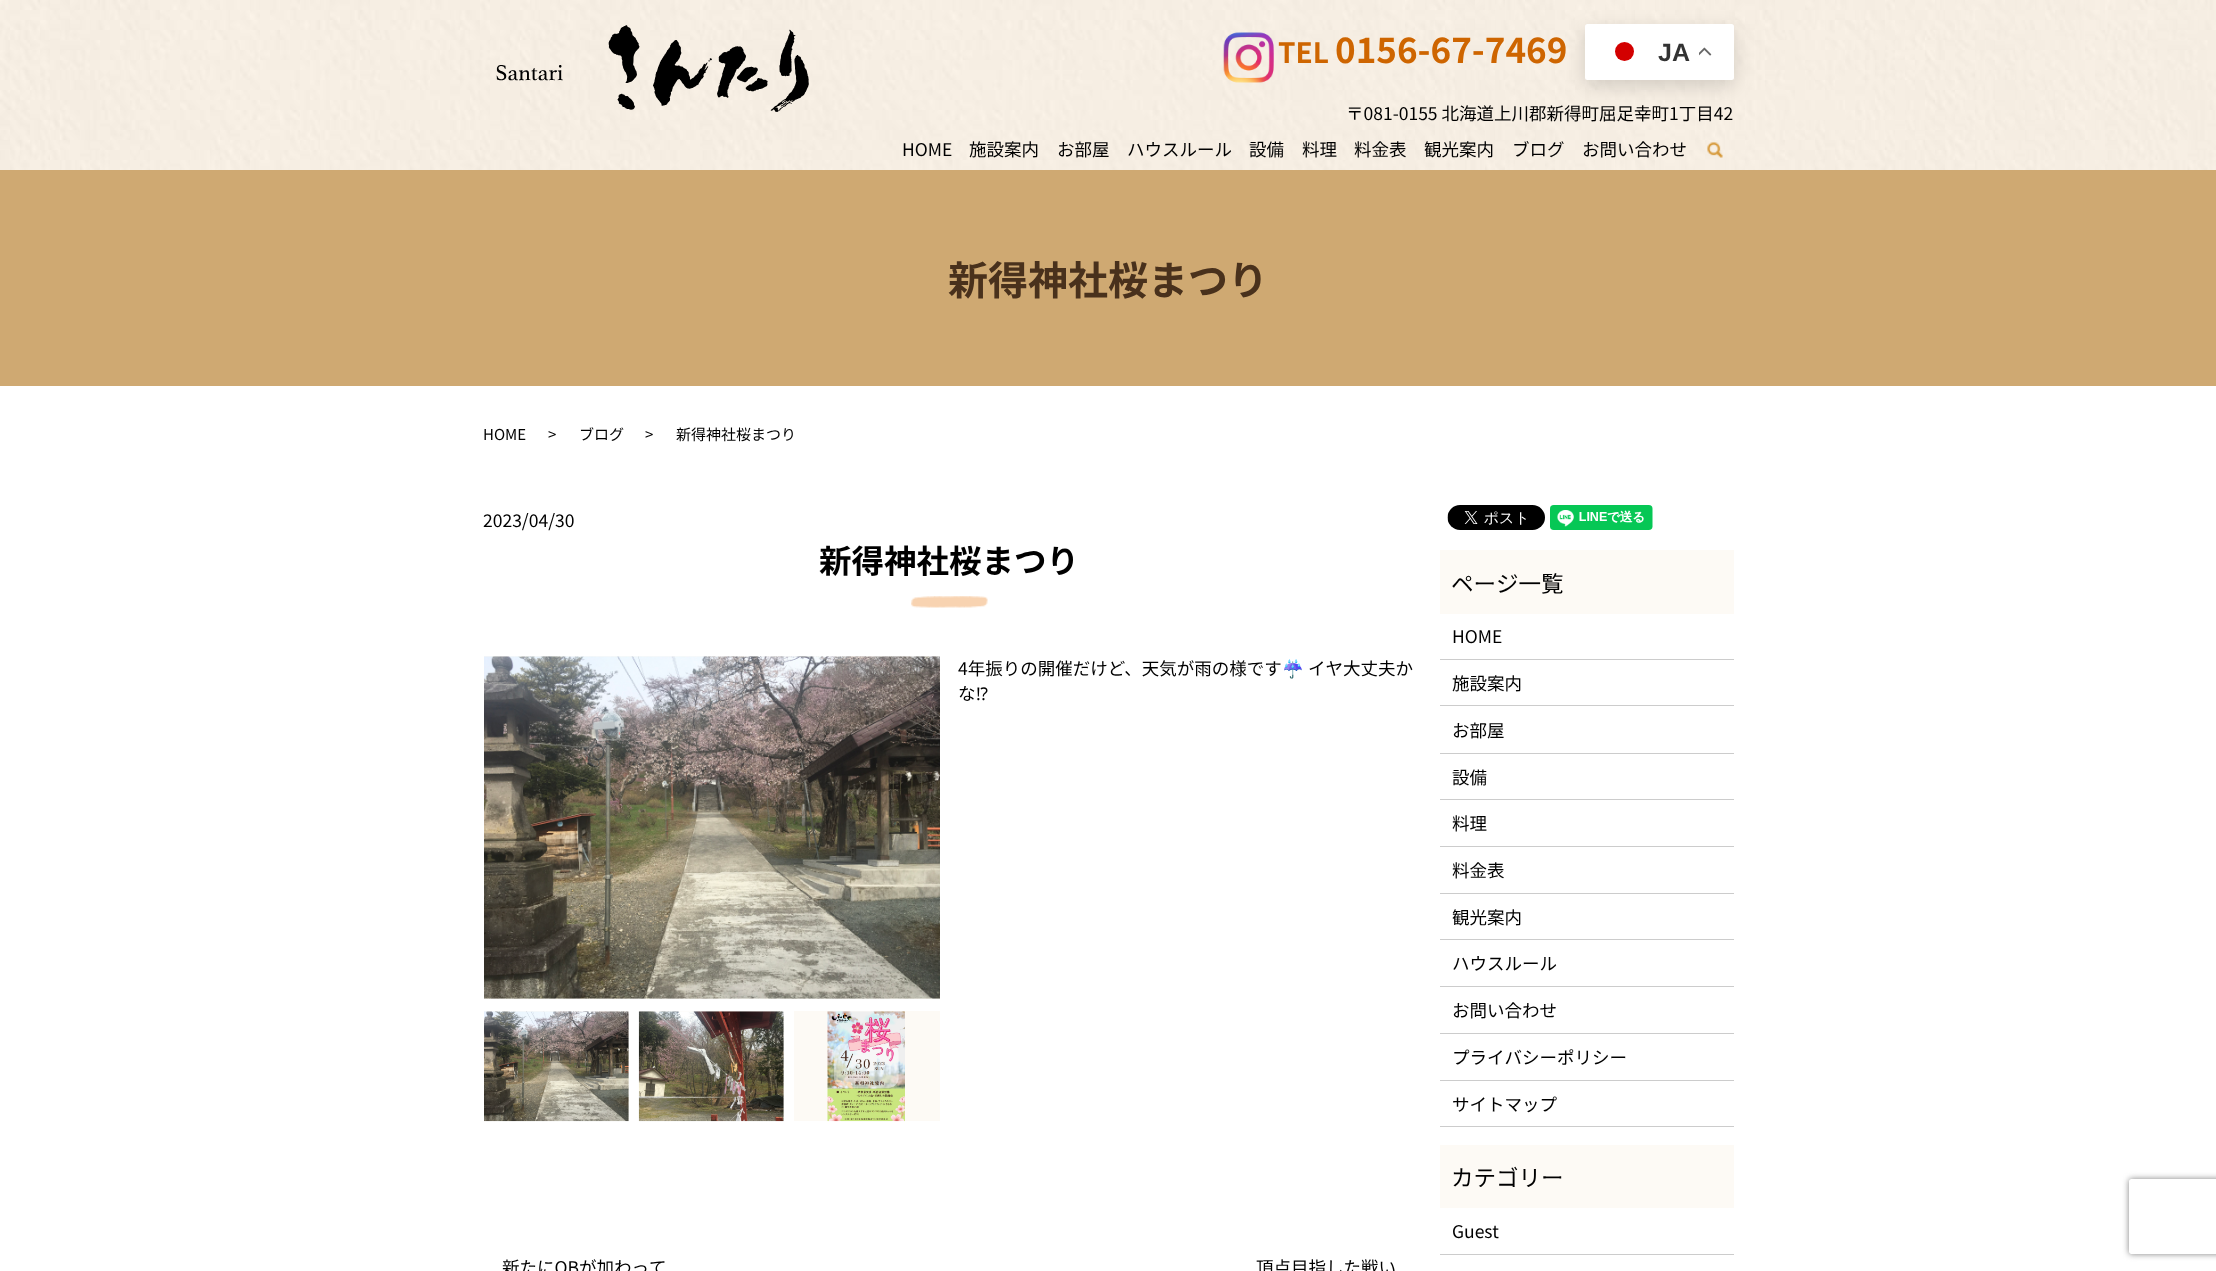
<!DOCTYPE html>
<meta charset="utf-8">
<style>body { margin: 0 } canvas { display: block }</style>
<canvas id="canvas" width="2216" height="1271"></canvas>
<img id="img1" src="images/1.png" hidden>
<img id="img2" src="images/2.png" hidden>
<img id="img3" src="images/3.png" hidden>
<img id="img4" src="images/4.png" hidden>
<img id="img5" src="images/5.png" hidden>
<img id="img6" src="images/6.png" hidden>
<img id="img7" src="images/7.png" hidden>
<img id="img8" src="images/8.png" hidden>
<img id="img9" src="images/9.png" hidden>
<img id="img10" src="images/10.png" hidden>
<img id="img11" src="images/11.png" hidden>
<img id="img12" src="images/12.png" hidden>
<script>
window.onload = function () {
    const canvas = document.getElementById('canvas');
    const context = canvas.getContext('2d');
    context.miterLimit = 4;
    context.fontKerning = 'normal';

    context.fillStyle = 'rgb(255, 255, 255)';
    context.fillRect(0, 0, 2216, 1271);
    context.drawImage(document.getElementById('img1'), 0, 0, 2216, 170);
    context.drawImage(document.getElementById('img2'), 496, 25, 313, 87);
    context.drawImage(document.getElementById('img3'), 1223, 32, 51, 51);
    context.fillStyle = 'rgba(0, 0, 0, 0.15)';
    context.filter = 'blur(9.5px)';
    context.beginPath();
    context.roundRect(1585, 30, 149, 56, 2.5);
    context.fill();
    context.filter = 'none';
    context.fillStyle = 'rgb(255, 255, 255)';
    context.beginPath();
    context.roundRect(1585, 24, 149, 56, 2.5);
    context.fill();
    context.fillStyle = 'rgb(211, 0, 0)';
    context.beginPath();
    context.arc(1624.5, 51.5, 9.5, 0, 2 * Math.PI);
    context.fill();
    context.drawImage(document.getElementById('img4'), 1699, 47, 13, 9);
    context.drawImage(document.getElementById('img5'), 1707, 142, 16, 16);
    context.fillStyle = 'rgb(207, 169, 114)';
    context.fillRect(0, 170, 2216, 216);
    context.drawImage(document.getElementById('img6'), 911, 596, 77, 12);
    context.fillStyle = 'rgb(253, 250, 245)';
    context.fillRect(484, 656, 456, 343);
    context.drawImage(document.getElementById('img7'), 484, 656, 456, 343);
    context.fillRect(484, 1011, 145, 110);
    context.drawImage(document.getElementById('img8'), 484, 1011, 145, 111);
    context.fillRect(639, 1011, 145, 110);
    context.drawImage(document.getElementById('img9'), 638, 1011, 146, 111);
    context.fillRect(794, 1011, 146, 110);
    context.drawImage(document.getElementById('img10'), 827, 1011, 78, 111);
    context.drawImage(document.getElementById('img11'), 1447, 505, 98, 25);
    context.drawImage(document.getElementById('img12'), 1550, 505, 103, 25);
    context.fillRect(1440, 550, 294, 64);
    context.fillStyle = 'rgb(204, 204, 204)';
    context.fillRect(1440, 659, 294, 1);
    context.fillRect(1440, 705, 294, 1);
    context.fillRect(1440, 753, 294, 1);
    context.fillRect(1440, 799, 294, 1);
    context.fillRect(1440, 846, 294, 1);
    context.fillRect(1440, 893, 294, 1);
    context.fillRect(1440, 939, 294, 1);
    context.fillRect(1440, 986, 294, 1);
    context.fillRect(1440, 1033, 294, 1);
    context.fillRect(1440, 1080, 294, 1);
    context.fillRect(1440, 1126, 294, 1);
    context.fillStyle = 'rgb(253, 250, 245)';
    context.fillRect(1440, 1145, 294, 63);
    context.fillStyle = 'rgb(204, 204, 204)';
    context.fillRect(1440, 1254, 294, 1);
    context.save();
    context.beginPath();
    context.moveTo(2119, 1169);
    context.lineTo(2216, 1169);
    context.lineTo(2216, 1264);
    context.lineTo(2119, 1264);
    context.closePath();
    context.moveTo(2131.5, 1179);
    context.lineTo(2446.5, 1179);
    context.bezierCurveTo(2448, 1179, 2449, 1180, 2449, 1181.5);
    context.lineTo(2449, 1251.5);
    context.bezierCurveTo(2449, 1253, 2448, 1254, 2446.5, 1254);
    context.lineTo(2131.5, 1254);
    context.bezierCurveTo(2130, 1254, 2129, 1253, 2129, 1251.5);
    context.lineTo(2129, 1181.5);
    context.bezierCurveTo(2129, 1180, 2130, 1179, 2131.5, 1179);
    context.closePath();
    context.clip('evenodd');
    context.fillStyle = 'rgb(128, 128, 128)';
    context.filter = 'blur(3px)';
    context.beginPath();
    context.roundRect(2129, 1179, 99, 75, 2.5);
    context.fill();
    context.filter = 'none';
    context.restore();
    context.font = 'bold 28px Noto Sans JP';
    context.fillStyle = 'rgb(206, 101, 0)';
    context.fillText('TEL', 1278, 63);
    context.font = 'bold 35px Noto Sans JP';
    context.fillText('0156-67-7469', 1335, 63);
    context.font = 'bold 25px Liberation Sans';
    context.fillStyle = 'rgb(51, 51, 51)';
    context.fillText('JA', 1658, 61);
    context.font = '17.5px Noto Sans JP';
    context.fillStyle = 'rgb(0, 0, 0)';
    context.fillText('〒081-0155 北海道上川郡新得町屈足幸町1丁目42', 1346, 120);
    context.fillText('HOME', 902, 156);
    context.fillText('施設案内', 969, 156);
    context.fillText('お部屋', 1057, 156);
    context.fillText('ハウスルール', 1127, 156);
    context.fillText('設備', 1249, 156);
    context.fillText('料理', 1302, 156);
    context.fillText('料金表', 1354, 156);
    context.fillText('観光案内', 1424, 156);
    context.fillText('ブログ', 1512, 156);
    context.fillText('お問い合わせ', 1582, 156);
    context.font = 'bold 40px Noto Sans JP';
    context.fillStyle = 'rgb(73, 49, 28)';
    context.fillText('新得神社桜まつり', 948, 295);
    context.font = '15px Noto Sans JP';
    context.fillStyle = 'rgb(0, 0, 0)';
    context.fillText('HOME', 483, 440);
    context.fillText('>', 548, 440);
    context.fillText('ブログ', 579, 440);
    context.fillText('>', 645, 440);
    context.fillText('新得神社桜まつり', 676, 440);
    context.font = '17.5px Noto Sans JP';
    context.fillText('2023/04/30', 483, 527);
    context.font = 'bold 32.5px Noto Sans JP';
    context.fillText('新得神社桜まつり', 819, 573);
    context.font = '17.5px Noto Sans JP';
    context.fillText('4年振りの開催だけど、天気が雨の様です', 958, 675);
    context.font = '17.5px Noto Color Emoji';
    context.fillText('☔️', 1282, 675);
    context.font = '17.5px Noto Sans JP';
    context.fillText('イヤ大丈夫か', 1308, 675);
    context.fillText('な', 958, 700);
    context.font = '17.5px Noto Color Emoji';
    context.fillText('⁉︎', 976, 700);
    context.font = '17.5px Noto Sans JP';
    context.fillText('新たにOBが加わって', 502, 1274);
    context.fillText('頂点目指した戦い', 1256, 1274);
    context.font = '22.5px Noto Sans JP';
    context.fillText('ページ一覧', 1451, 592);
    context.font = '17.5px Noto Sans JP';
    context.fillText('HOME', 1452, 643);
    context.fillText('施設案内', 1452, 690);
    context.fillText('お部屋', 1452, 737);
    context.fillText('設備', 1452, 784);
    context.fillText('料理', 1452, 830);
    context.fillText('料金表', 1452, 877);
    context.fillText('観光案内', 1452, 924);
    context.fillText('ハウスルール', 1452, 970);
    context.fillText('お問い合わせ', 1452, 1017);
    context.fillText('プライバシーポリシー', 1452, 1064);
    context.fillText('サイトマップ', 1452, 1111);
    context.font = '22.5px Noto Sans JP';
    context.fillText('カテゴリー', 1451, 1186);
    context.font = '17.5px Noto Sans JP';
    context.fillText('Guest', 1452, 1238);
};
</script>
